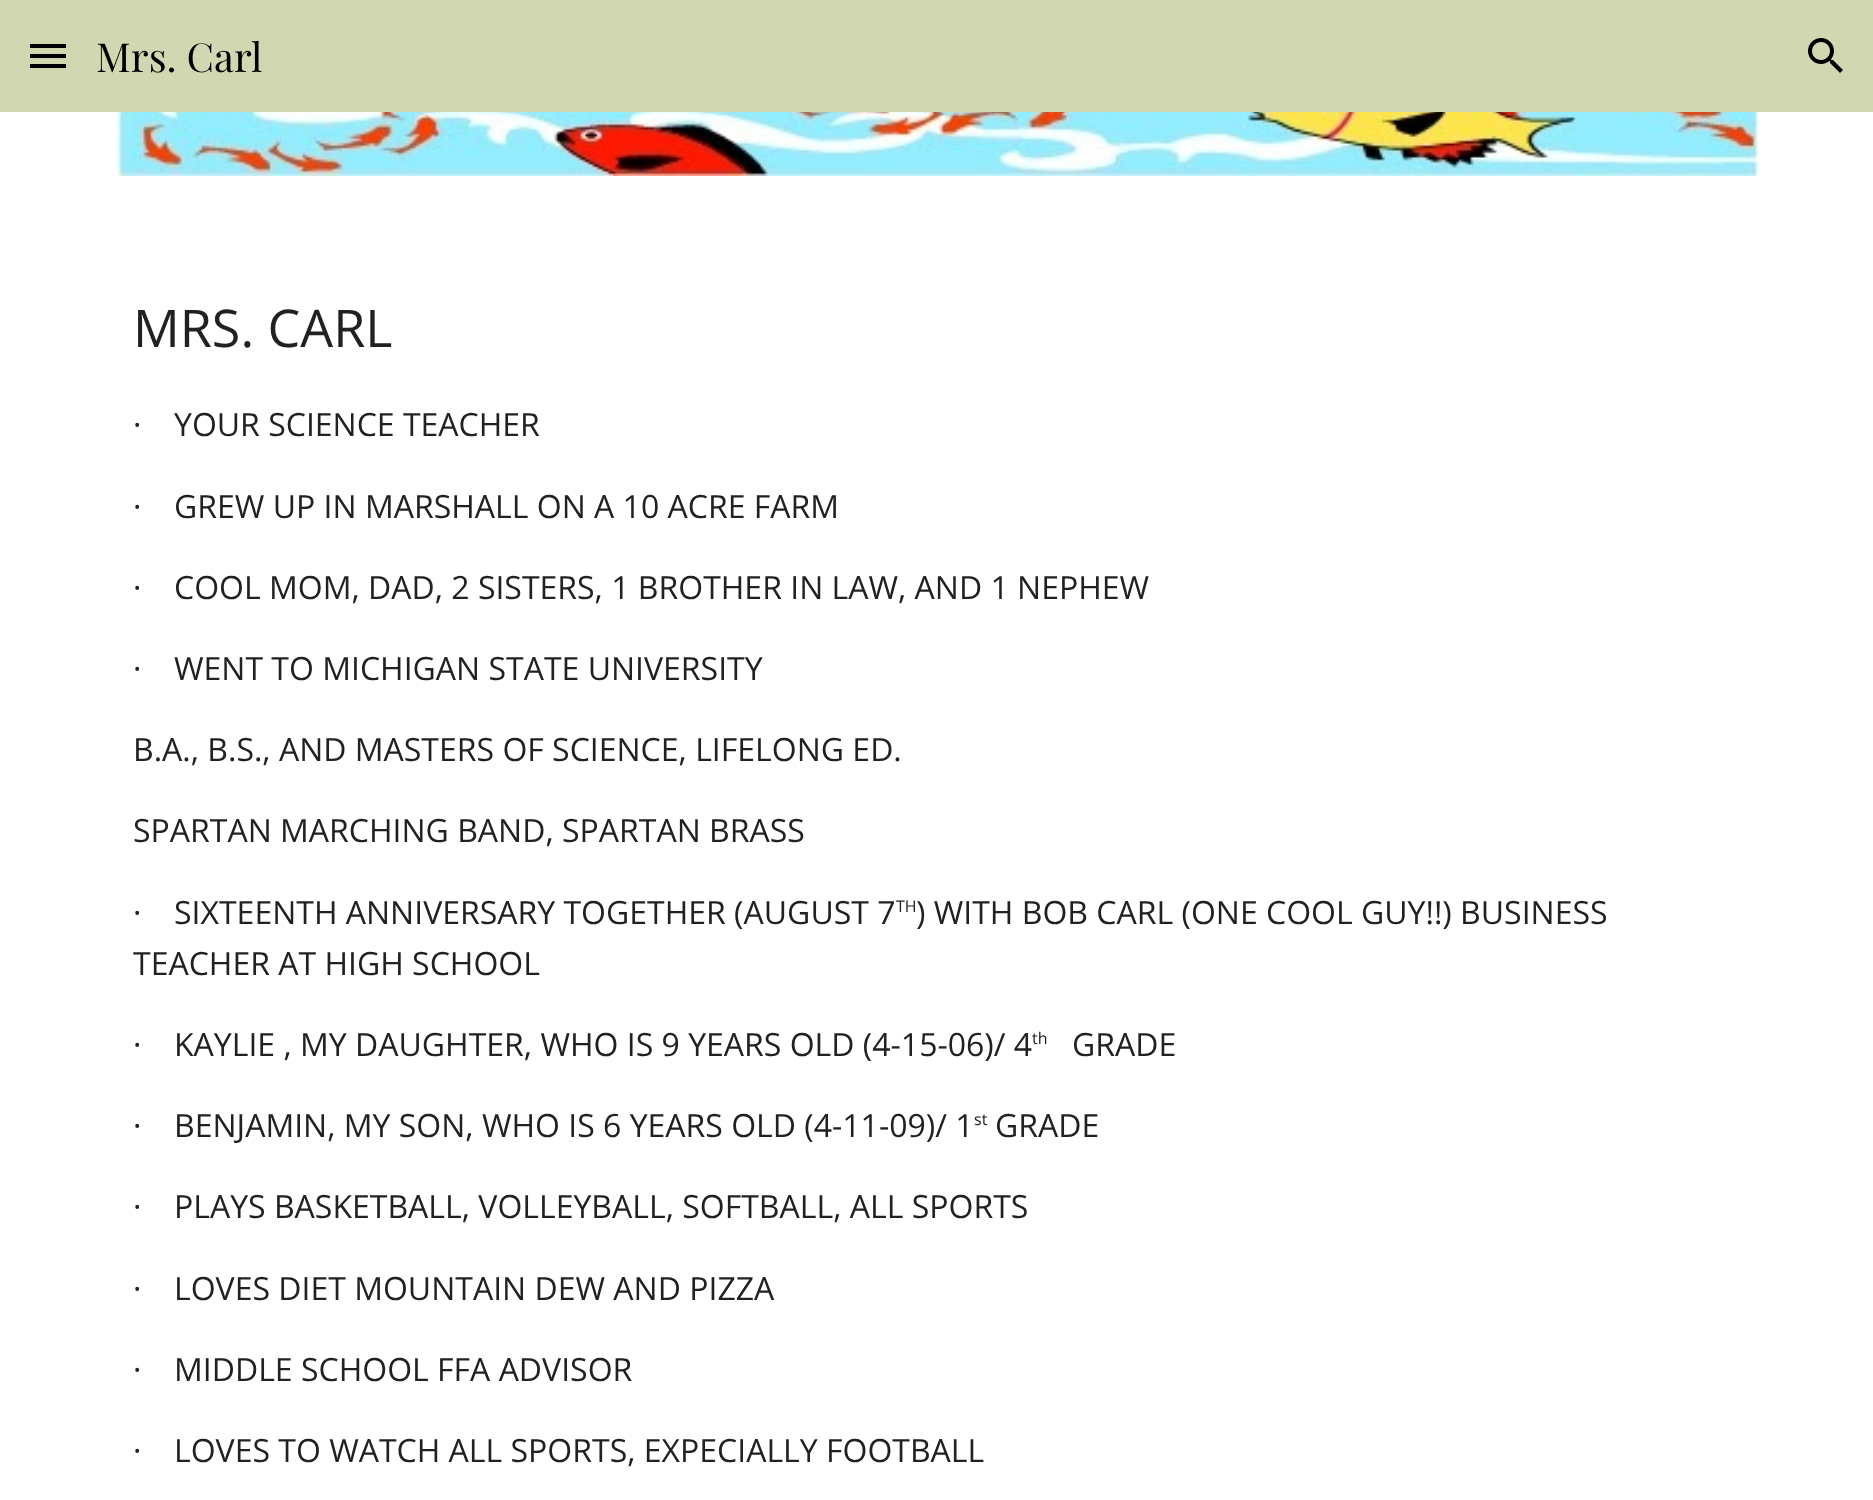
<!DOCTYPE html>
<meta charset="utf-8">
<style>body { margin: 0 } canvas { display: block }</style>
<canvas id="canvas" width="1873" height="1500"></canvas>
<img id="img1" src="images/1.png" hidden>
<img id="img2" src="images/2.png" hidden>
<script>
window.onload = function () {
    const canvas = document.getElementById('canvas');
    const context = canvas.getContext('2d');
    context.miterLimit = 4;
    context.fontKerning = 'normal';

    context.fillStyle = 'rgb(255, 255, 255)';
    context.fillRect(0, 0, 1873, 1500);
    context.fillStyle = 'rgb(209, 215, 177)';
    context.fillRect(0, 0, 1873, 112);
    context.fillStyle = 'rgb(0, 0, 0)';
    context.fillRect(30, 44, 36, 4);
    context.fillRect(30, 54, 36, 4);
    context.fillRect(30, 64, 36, 4);
    context.drawImage(document.getElementById('img1'), 1808, 38, 35, 35);
    context.drawImage(document.getElementById('img2'), 118, 112, 1640, 64);
    context.font = '40px Playfair Display';
    context.fillText('Mrs. Carl', 96, 72);
    context.font = '52px Open Sans';
    context.fillStyle = 'rgb(33, 33, 33)';
    context.fillText('MRS. CARL', 133, 347);
    context.font = '32px Open Sans';
    context.fillText('·', 133, 436);
    context.fillText('YOUR SCIENCE TEACHER', 174, 436);
    context.fillText('·', 133, 518);
    context.fillText('GREW UP IN MARSHALL ON A 10 ACRE FARM', 174, 518);
    context.fillText('·', 133, 599);
    context.fillText('COOL MOM, DAD, 2 SISTERS, 1 BROTHER IN LAW, AND 1 NEPHEW', 174, 599);
    context.fillText('·', 133, 680);
    context.fillText('WENT TO MICHIGAN STATE UNIVERSITY', 174, 680);
    context.fillText('B.A., B.S., AND MASTERS OF SCIENCE, LIFELONG ED.', 133, 761);
    context.fillText('SPARTAN MARCHING BAND, SPARTAN BRASS', 133, 842);
    context.fillText('·', 133, 924);
    context.fillText('SIXTEENTH ANNIVERSARY TOGETHER (AUGUST 7', 174, 924);
    context.font = '16px Open Sans';
    context.fillText('TH', 896, 912);
    context.font = '32px Open Sans';
    context.fillText(') WITH BOB CARL (ONE COOL GUY!!) BUSINESS', 916, 924);
    context.fillText('TEACHER AT HIGH SCHOOL', 133, 975);
    context.fillText('·', 133, 1056);
    context.fillText('KAYLIE , MY DAUGHTER, WHO IS 9 YEARS OLD (4-15-06)/ 4', 174, 1056);
    context.font = '16px Open Sans';
    context.fillText('th', 1032, 1044);
    context.font = '32px Open Sans';
    context.fillText('GRADE', 1072, 1056);
    context.fillText('·', 133, 1137);
    context.fillText('BENJAMIN, MY SON, WHO IS 6 YEARS OLD (4-11-09)/ 1', 174, 1137);
    context.font = '16px Open Sans';
    context.fillText('st', 974, 1125);
    context.font = '32px Open Sans';
    context.fillText('GRADE', 995, 1137);
    context.fillText('·', 133, 1218);
    context.fillText('PLAYS BASKETBALL, VOLLEYBALL, SOFTBALL, ALL SPORTS', 174, 1218);
    context.fillText('·', 133, 1300);
    context.fillText('LOVES DIET MOUNTAIN DEW AND PIZZA', 174, 1300);
    context.fillText('·', 133, 1381);
    context.fillText('MIDDLE SCHOOL FFA ADVISOR', 174, 1381);
    context.fillText('·', 133, 1462);
    context.fillText('LOVES TO WATCH ALL SPORTS, EXPECIALLY FOOTBALL', 174, 1462);
};
</script>
